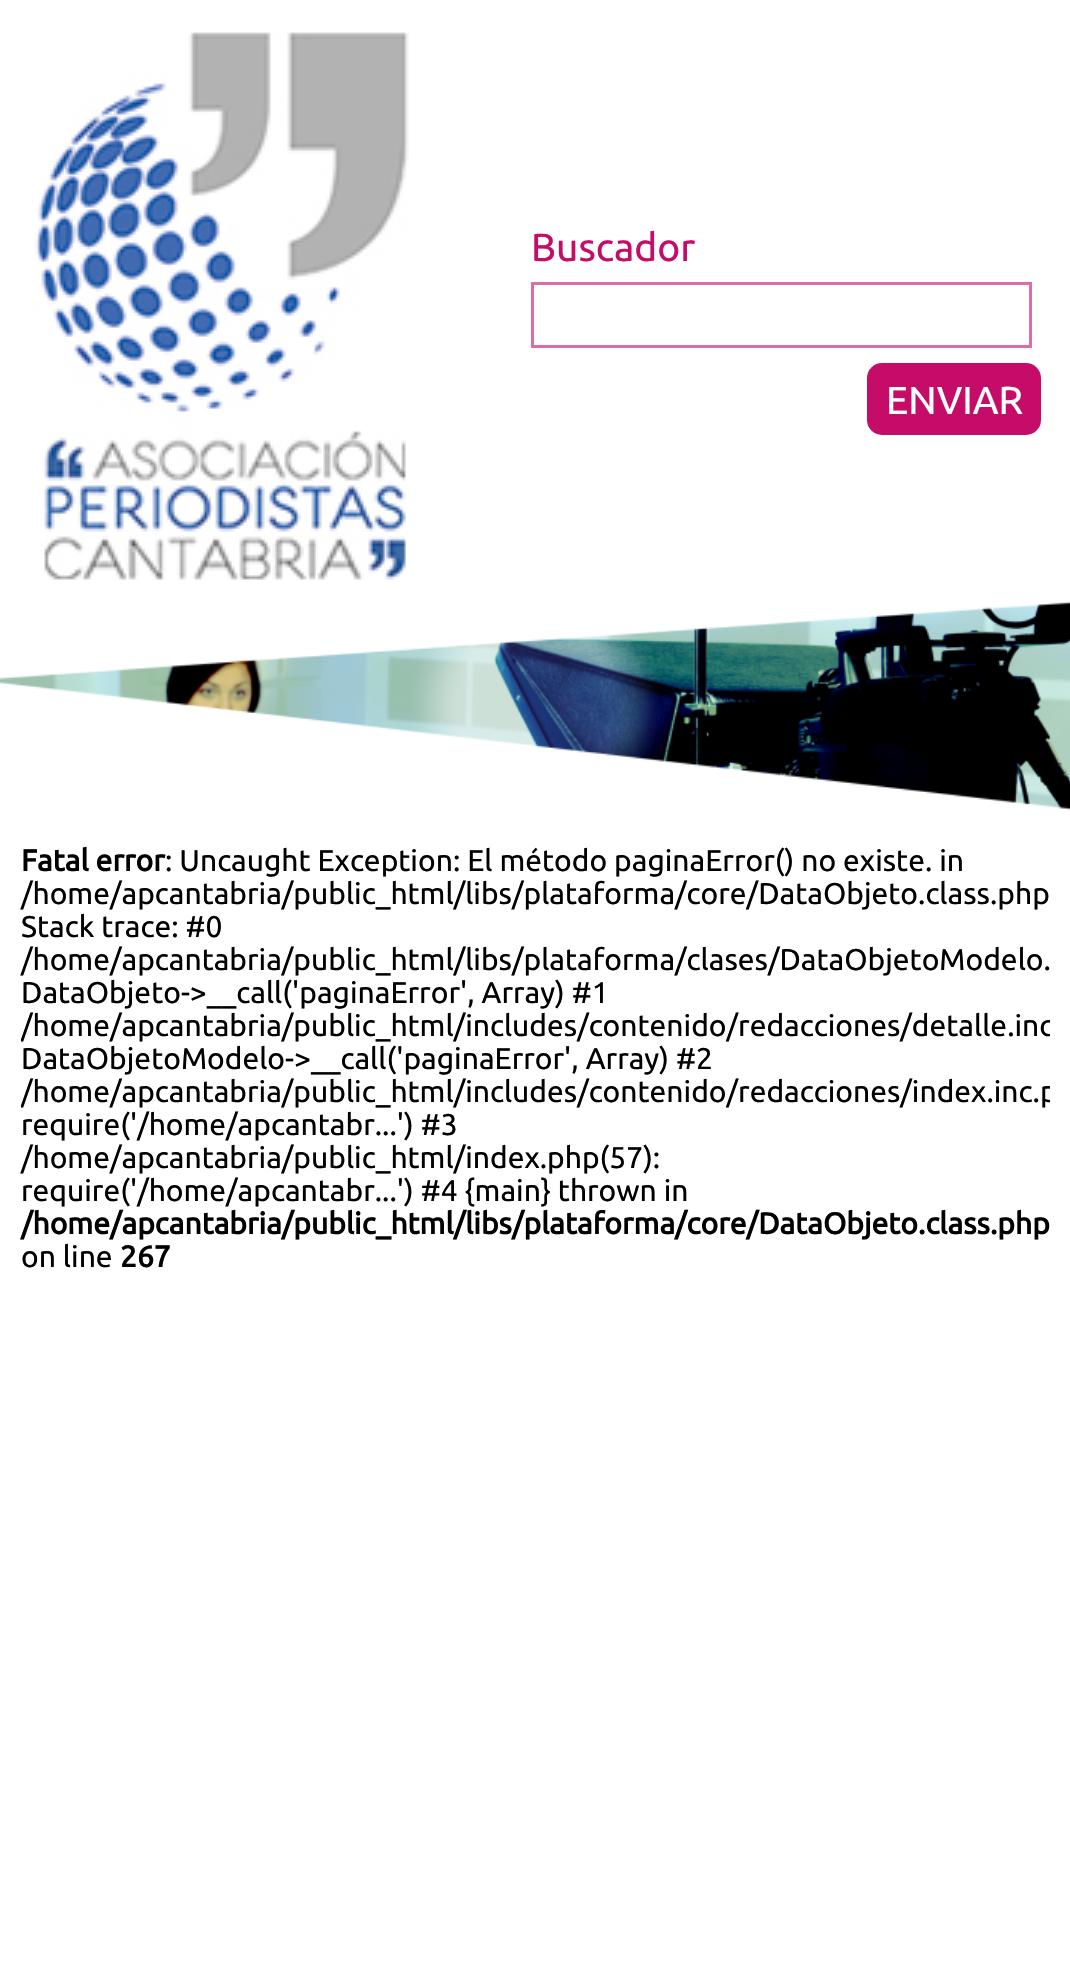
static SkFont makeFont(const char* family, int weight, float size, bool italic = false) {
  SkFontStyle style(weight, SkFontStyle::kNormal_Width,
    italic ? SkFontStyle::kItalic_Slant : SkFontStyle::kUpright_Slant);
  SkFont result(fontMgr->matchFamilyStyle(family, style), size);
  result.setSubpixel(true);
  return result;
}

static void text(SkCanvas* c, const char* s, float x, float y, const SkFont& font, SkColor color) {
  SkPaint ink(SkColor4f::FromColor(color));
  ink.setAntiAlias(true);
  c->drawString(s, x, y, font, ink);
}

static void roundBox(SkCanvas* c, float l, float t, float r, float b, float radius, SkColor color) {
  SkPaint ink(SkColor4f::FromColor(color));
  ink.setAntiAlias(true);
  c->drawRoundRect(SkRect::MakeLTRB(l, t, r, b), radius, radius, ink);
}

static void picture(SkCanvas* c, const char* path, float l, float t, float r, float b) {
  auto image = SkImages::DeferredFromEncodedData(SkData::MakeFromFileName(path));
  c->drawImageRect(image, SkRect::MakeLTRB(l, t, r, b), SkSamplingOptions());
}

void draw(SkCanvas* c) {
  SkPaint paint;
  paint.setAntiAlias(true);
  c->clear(0xffffffff);
  picture(c, "img_01.png", 35, 32, 409, 580);
  SkFont face1 = makeFont("Ubuntu", 400, 39);
  text(c, "Buscador", 531, 261, face1, 0xffc50c69);
  paint.setStyle(SkPaint::kStroke_Style);
  paint.setStrokeWidth(3);
  paint.setColor(0xffdc6da5);
  c->drawRect(SkRect::MakeLTRB(532.5f, 283.5f, 1030.5f, 346.5f), paint);
  roundBox(c, 867, 363, 1041, 435, 15, 0xffc50c69);
  text(c, "ENVIAR", 886, 414, face1, 0xffffffff);
  picture(c, "img_02.png", 0, 601, 1070, 810);
  SkFont face2 = makeFont("Ubuntu", 700, 30);
  text(c, "Fatal error", 21, 871, face2, 0xff000000);
  SkFont face3 = makeFont("Ubuntu", 400, 30);
  text(c, ": Uncaught Exception: El método paginaError() no existe. in", 165, 871, face3, 0xff000000);
  text(c, "/home/apcantabria/public_html/libs/plataforma/core/DataObjeto.class.php", 21, 904, face3, 0xff000000);
  text(c, "Stack trace: #0", 21, 937, face3, 0xff000000);
  text(c, "/home/apcantabria/public_html/libs/plataforma/clases/DataObjetoModelo.", 21, 970, face3, 0xff000000);
  text(c, "DataObjeto->__call('paginaError', Array) #1", 21, 1003, face3, 0xff000000);
  c->save();
  c->clipRect(SkRect::MakeLTRB(21, 810, 1050, 1272));
  text(c, "/home/apcantabria/public_html/includes/contenido/redacciones/detalle.inc", 21, 1036, face3, 0xff000000);
  c->restore();
  text(c, "DataObjetoModelo->__call('paginaError', Array) #2", 21, 1069, face3, 0xff000000);
  c->save();
  c->clipRect(SkRect::MakeLTRB(21, 810, 1050, 1272));
  text(c, "/home/apcantabria/public_html/includes/contenido/redacciones/index.inc.p", 21, 1102, face3, 0xff000000);
  c->restore();
  text(c, "require('/home/apcantabr...') #3", 21, 1135, face3, 0xff000000);
  text(c, "/home/apcantabria/public_html/index.php(57):", 21, 1168, face3, 0xff000000);
  text(c, "require('/home/apcantabr...') #4 {main} thrown in", 21, 1201, face3, 0xff000000);
  text(c, "/home/apcantabria/public_html/libs/plataforma/core/DataObjeto.class.php", 21, 1234, face2, 0xff000000);
  text(c, "on line", 21, 1267, face3, 0xff000000);
  text(c, "267", 120, 1267, face2, 0xff000000);
}
